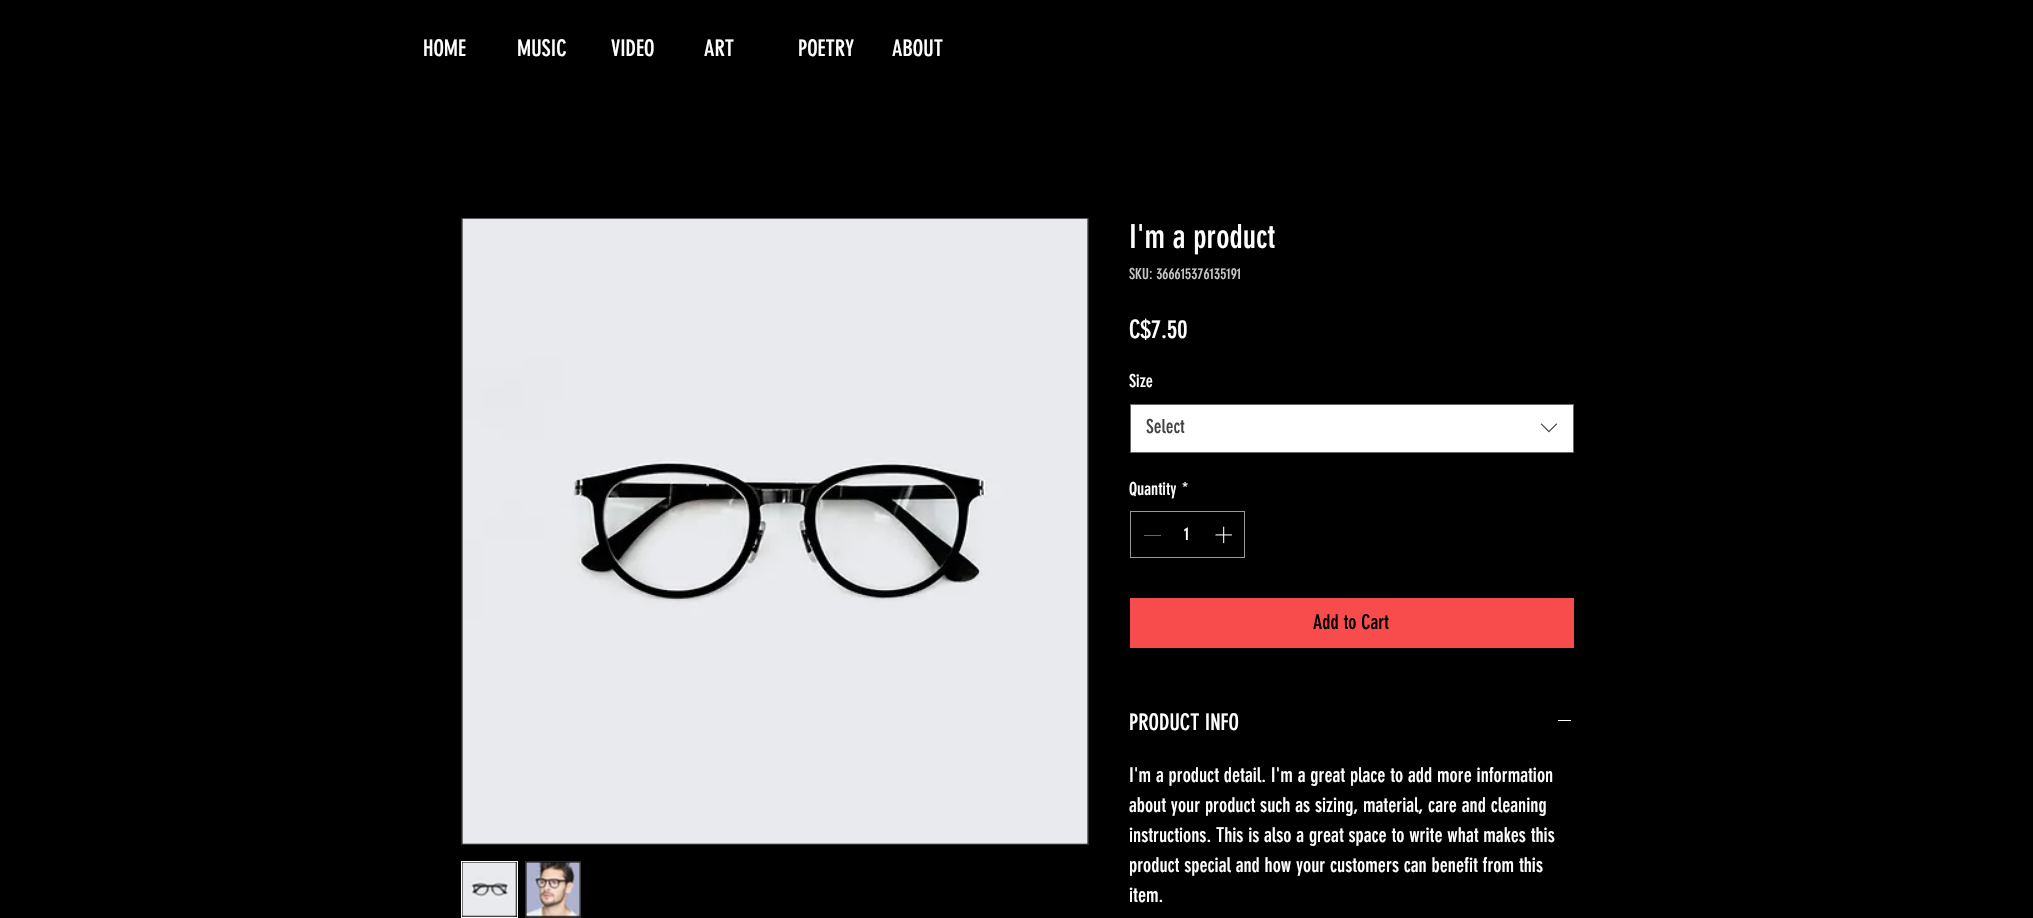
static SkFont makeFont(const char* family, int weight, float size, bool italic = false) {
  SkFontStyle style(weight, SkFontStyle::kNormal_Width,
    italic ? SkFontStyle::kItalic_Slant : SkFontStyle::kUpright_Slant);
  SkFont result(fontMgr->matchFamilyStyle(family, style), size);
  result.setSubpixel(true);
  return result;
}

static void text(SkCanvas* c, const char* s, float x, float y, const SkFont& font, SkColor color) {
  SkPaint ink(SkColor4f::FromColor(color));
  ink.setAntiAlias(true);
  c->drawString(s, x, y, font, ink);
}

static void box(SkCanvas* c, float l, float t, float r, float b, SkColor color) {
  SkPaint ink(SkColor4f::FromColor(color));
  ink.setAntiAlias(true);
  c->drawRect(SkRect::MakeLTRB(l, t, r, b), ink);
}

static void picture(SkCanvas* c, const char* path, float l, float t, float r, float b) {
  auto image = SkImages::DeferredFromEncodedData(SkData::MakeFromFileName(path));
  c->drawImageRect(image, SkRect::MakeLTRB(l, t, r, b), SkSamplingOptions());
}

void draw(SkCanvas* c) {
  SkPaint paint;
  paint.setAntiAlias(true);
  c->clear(0xff000000);
  SkFont face1 = makeFont("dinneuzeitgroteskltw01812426", 400, 22.5f);
  text(c, "HOME", 423, 56, face1, 0xffffffff);
  text(c, "MUSIC", 517, 56, face1, 0xffffffff);
  text(c, "VIDEO", 611, 56, face1, 0xffffffff);
  text(c, "ART", 704, 56, face1, 0xffffffff);
  text(c, "POETRY", 798, 56, face1, 0xffffffff);
  text(c, "ABOUT", 892, 56, face1, 0xffffffff);
  paint.setStyle(SkPaint::kStroke_Style);
  paint.setStrokeWidth(1);
  paint.setColor(0xff2b2b2b);
  c->drawRect(SkRect::MakeLTRB(461.5f, 218.5f, 1088.5f, 844.5f), paint);
  picture(c, "img_01.png", 462, 218, 1088, 844);
  paint.setColor(0xffffffff);
  c->drawRect(SkRect::MakeLTRB(461.5f, 861.5f, 517.5f, 917.5f), paint);
  picture(c, "img_02.png", 462, 862, 517, 917);
  paint.setColor(0xff2b2b2b);
  c->drawRect(SkRect::MakeLTRB(525.5f, 861.5f, 580.5f, 917.5f), paint);
  picture(c, "img_03.png", 525, 862, 581, 917);
  SkFont face2 = makeFont("dinneuzeitgroteskltw01812426", 400, 32.5f);
  text(c, "I'm a product", 1129, 248, face2, 0xffffffff);
  SkFont face3 = makeFont("dinneuzeitgroteskltw01812426", 400, 15);
  text(c, "SKU: 366615376135191", 1129, 279, face3, 0xffc7c7c7);
  SkFont face4 = makeFont("dinneuzeitgroteskltw01812426", 400, 25);
  text(c, "C$7.50", 1129, 338, face4, 0xffffffff);
  SkFont face5 = makeFont("dinneuzeitgroteskltw01812426", 400, 17.5f);
  text(c, "Size", 1129, 387, face5, 0xffffffff);
  paint.setStyle(SkPaint::kFill_Style);
  paint.setColor(0xffffffff);
  c->drawRect(SkRect::MakeLTRB(1130.5f, 404.5f, 1573.5f, 452.5f), paint);
  paint.setStyle(SkPaint::kStroke_Style);
  paint.setColor(0xff666666);
  c->drawRect(SkRect::MakeLTRB(1130.5f, 404.5f, 1573.5f, 452.5f), paint);
  SkFont face6 = makeFont("dinneuzeitgroteskltw01812426", 400, 19);
  text(c, "Select", 1146, 433, face6, 0xff444444);
  picture(c, "img_04.png", 1540, 423, 1558, 433);
  text(c, "Quantity", 1129, 495, face5, 0xffffffff);
  text(c, "*", 1182, 495, face5, 0xffffffff);
  paint.setColor(0xff999999);
  c->drawRect(SkRect::MakeLTRB(1130.5f, 511.5f, 1244.5f, 557.5f), paint);
  box(c, 1144, 535, 1161, 536, 0xff646464);
  text(c, "1", 1184, 540, face5, 0xffffffff);
  picture(c, "img_05.png", 1215, 526, 1232, 544);
  box(c, 1130, 598, 1574, 648, 0xfff74b4c);
  SkFont face7 = makeFont("dinneuzeitgroteskltw01812426", 400, 20);
  text(c, "Add to Cart", 1313, 629, face7, 0xff000000);
  text(c, "PRODUCT INFO", 1129, 730, face1, 0xffffffff);
  box(c, 1558, 720, 1571, 721, 0xffffffff);
  text(c, "I'm a product detail. I'm a great place to add more information", 1129, 782, face7, 0xffffffff);
  text(c, "about your product such as sizing, material, care and cleaning", 1129, 812, face7, 0xffffffff);
  text(c, "instructions. This is also a great space to write what makes this", 1129, 842, face7, 0xffffffff);
  text(c, "product special and how your customers can benefit from this", 1129, 872, face7, 0xffffffff);
  text(c, "item.", 1129, 902, face7, 0xffffffff);
}
